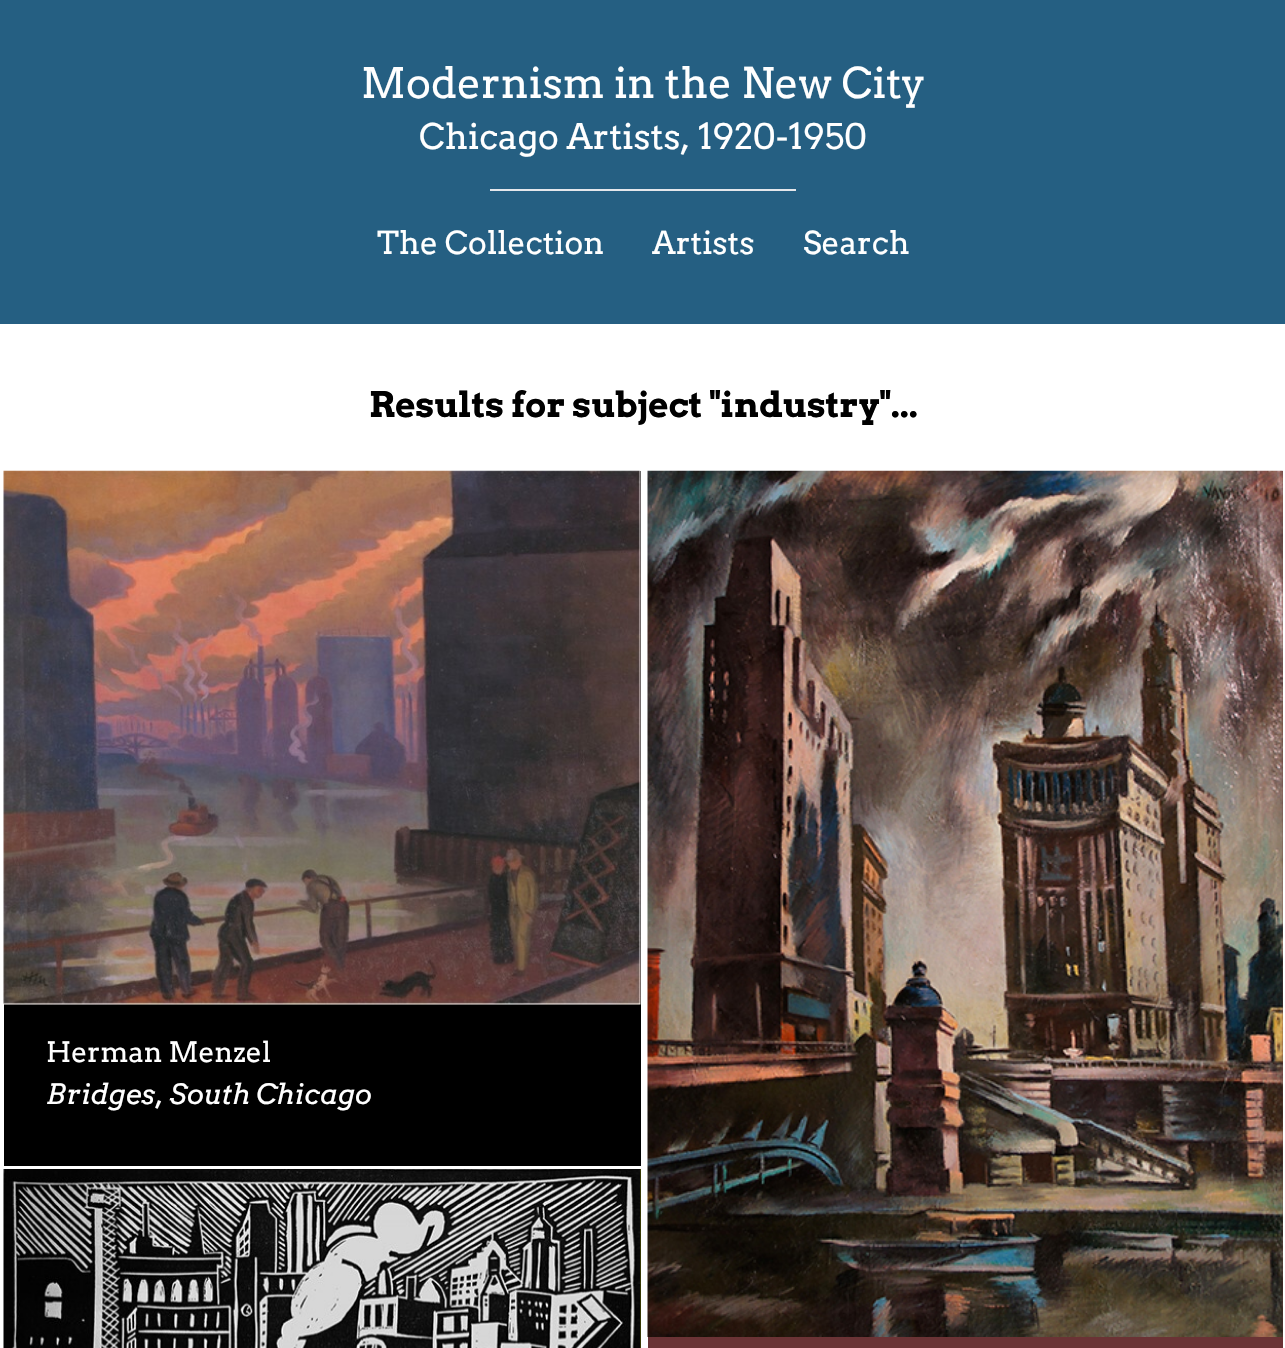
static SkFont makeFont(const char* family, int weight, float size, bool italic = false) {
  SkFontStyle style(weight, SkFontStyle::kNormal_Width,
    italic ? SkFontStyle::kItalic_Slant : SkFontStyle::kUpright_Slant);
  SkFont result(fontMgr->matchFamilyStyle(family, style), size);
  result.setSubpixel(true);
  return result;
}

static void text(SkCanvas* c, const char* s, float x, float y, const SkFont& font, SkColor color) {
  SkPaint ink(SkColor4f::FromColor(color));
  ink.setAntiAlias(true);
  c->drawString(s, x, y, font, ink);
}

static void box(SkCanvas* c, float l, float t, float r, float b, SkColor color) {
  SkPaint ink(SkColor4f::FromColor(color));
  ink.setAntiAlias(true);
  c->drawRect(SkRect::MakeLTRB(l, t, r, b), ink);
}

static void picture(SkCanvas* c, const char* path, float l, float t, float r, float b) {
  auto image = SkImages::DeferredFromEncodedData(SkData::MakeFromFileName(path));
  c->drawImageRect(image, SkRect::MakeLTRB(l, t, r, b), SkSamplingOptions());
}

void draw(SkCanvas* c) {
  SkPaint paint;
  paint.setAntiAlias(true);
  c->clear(0xffffffff);
  box(c, 0, 0, 1285, 324, 0xff255f82);
  SkFont face1 = makeFont("Arvo", 400, 42);
  text(c, "Modernism in the New City", 361, 98, face1, 0xffffffff);
  SkFont face2 = makeFont("Arvo", 400, 35);
  text(c, "Chicago Artists, 1920-1950", 419, 149, face2, 0xffffffff);
  box(c, 490, 189, 796, 191, 0xffe5e7eb);
  SkFont face3 = makeFont("Arvo", 400, 31.5f);
  text(c, "The Collection", 377, 254, face3, 0xffffffff);
  text(c, "Artists", 652, 254, face3, 0xffffffff);
  text(c, "Search", 803, 254, face3, 0xffffffff);
  SkFont face4 = makeFont("Arvo", 700, 35);
  text(c, "Results for subject \"industry\"...", 369, 417, face4, 0xff000000);
  box(c, 4, 471, 641, 1166, 0xff000000);
  picture(c, "img_01.png", 3, 470, 641, 1005);
  SkFont face5 = makeFont("Arvo", 400, 28);
  text(c, "Herman Menzel", 46, 1062, face5, 0xffffffff);
  SkFont face6 = makeFont("Arvo", 400, 28, true);
  text(c, "Bridges, South Chicago", 46, 1104, face6, 0xffffffff);
  box(c, 648, 471, 1283, 1348, 0xff6a3335);
  picture(c, "img_02.png", 647, 470, 1283, 1337);
  box(c, 640, 1169, 641, 1348, 0xff656800);
  picture(c, "img_03.png", 3, 1169, 641, 1348);
}
